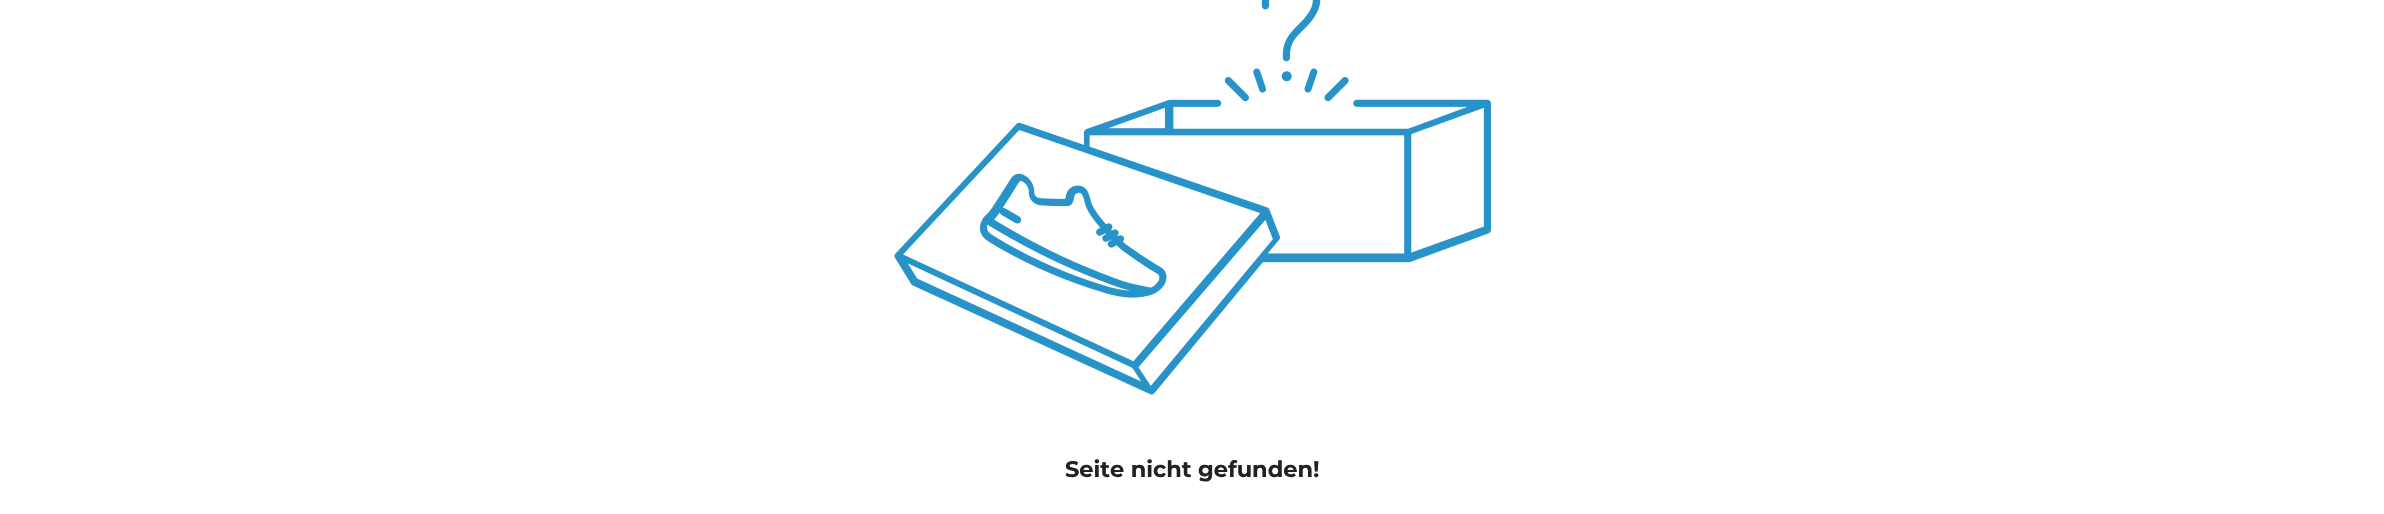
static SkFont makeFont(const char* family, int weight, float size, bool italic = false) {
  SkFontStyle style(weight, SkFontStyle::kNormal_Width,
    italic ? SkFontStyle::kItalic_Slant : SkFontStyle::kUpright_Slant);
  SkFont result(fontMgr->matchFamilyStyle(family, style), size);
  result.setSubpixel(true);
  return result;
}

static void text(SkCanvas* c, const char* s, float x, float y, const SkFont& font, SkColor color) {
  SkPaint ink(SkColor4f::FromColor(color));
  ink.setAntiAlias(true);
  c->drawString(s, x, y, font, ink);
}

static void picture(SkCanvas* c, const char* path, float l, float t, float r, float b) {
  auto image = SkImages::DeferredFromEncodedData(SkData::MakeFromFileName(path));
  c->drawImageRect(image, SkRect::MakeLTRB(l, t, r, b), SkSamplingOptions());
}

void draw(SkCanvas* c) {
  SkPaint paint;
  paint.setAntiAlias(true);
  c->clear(0xffffffff);
  picture(c, "img_01.png", 894, 0, 1491, 395);
  SkFont face1 = makeFont("Montserrat", 700, 22.5f);
  text(c, "Seite nicht gefunden!", 1065, 477, face1, 0xff222222);
}
